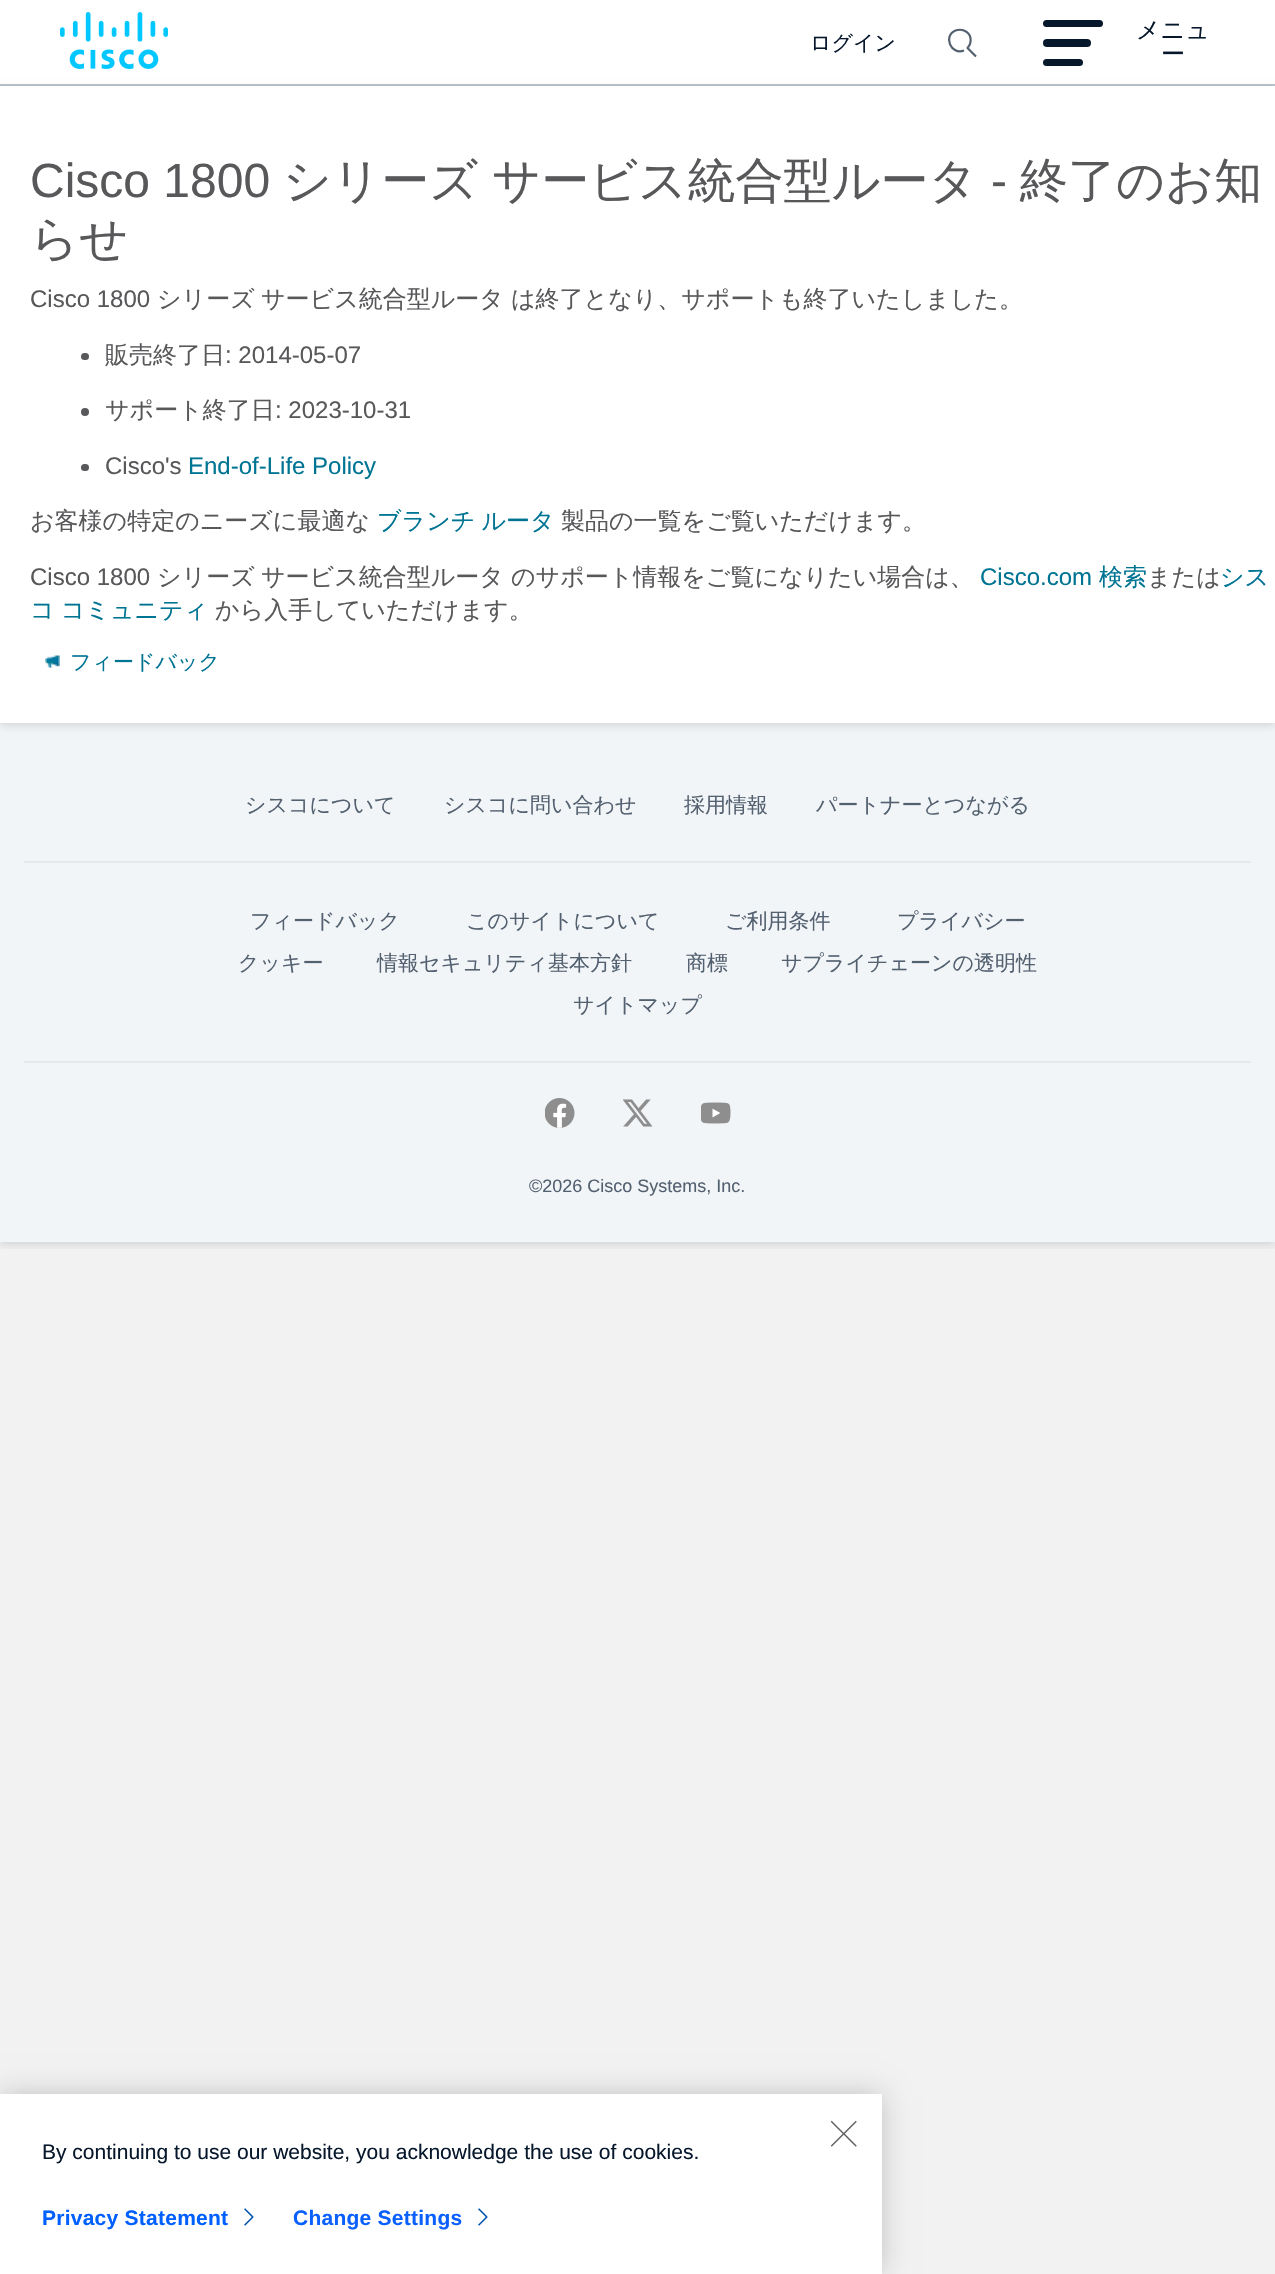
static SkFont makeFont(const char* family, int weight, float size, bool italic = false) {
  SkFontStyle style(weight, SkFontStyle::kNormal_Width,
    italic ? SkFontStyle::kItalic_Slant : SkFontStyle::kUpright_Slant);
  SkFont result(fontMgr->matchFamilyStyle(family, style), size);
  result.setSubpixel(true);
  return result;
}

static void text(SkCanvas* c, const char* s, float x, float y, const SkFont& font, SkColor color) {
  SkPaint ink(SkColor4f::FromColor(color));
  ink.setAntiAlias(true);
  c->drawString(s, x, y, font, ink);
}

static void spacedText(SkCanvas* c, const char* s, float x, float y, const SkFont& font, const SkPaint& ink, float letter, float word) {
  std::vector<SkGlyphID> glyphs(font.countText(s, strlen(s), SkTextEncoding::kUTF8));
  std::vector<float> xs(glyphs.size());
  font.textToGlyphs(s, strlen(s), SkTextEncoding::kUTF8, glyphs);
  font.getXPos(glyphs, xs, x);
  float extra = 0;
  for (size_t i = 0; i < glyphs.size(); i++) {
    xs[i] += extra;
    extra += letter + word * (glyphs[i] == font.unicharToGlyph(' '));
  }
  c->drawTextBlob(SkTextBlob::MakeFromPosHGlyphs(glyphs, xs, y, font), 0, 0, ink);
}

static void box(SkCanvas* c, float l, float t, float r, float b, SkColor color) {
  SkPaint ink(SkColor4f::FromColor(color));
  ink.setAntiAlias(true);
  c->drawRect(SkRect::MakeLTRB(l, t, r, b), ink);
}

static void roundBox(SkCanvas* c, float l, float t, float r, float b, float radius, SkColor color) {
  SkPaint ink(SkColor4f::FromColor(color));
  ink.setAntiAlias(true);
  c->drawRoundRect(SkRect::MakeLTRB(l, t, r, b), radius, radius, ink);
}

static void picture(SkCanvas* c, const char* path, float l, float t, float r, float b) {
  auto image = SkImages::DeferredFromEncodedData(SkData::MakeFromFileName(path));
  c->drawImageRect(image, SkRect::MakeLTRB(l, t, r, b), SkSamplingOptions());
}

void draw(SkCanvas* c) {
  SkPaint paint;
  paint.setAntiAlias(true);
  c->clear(0xfff2f2f2);
  box(c, 0, 0, 1275, 84, 0xffffffff);
  box(c, 0, 84, 1275, 86, 0xffb9c1c9);
  picture(c, "img_01.png", 60, 12, 168, 69);
  SkFont face1 = makeFont("WenQuanYi Zen Hei", 500, 21);
  text(c, "ログイン", 810, 50, face1, 0xff07182d);
  paint.setStyle(SkPaint::kStroke_Style);
  paint.setStrokeWidth(2.2f);
  paint.setStrokeJoin(SkPaint::kRound_Join);
  paint.setColor(0xff536070);
  c->drawPath(SkPathBuilder().moveTo(964, 50.5f).cubicTo(951, 55.5f, 942.5f, 36, 955.5f, 30.5f).cubicTo(958.5f, 29.5f, 961.5f, 29.5f, 964, 30.5f).cubicTo(967.5f, 32, 970, 35, 970.5f, 38).cubicTo(971, 42, 970, 45.5f, 967.5f, 48).lineTo(976, 56.5f).detach(), paint);
  roundBox(c, 1043, 20, 1103, 27, 3.5f, 0xff07182d);
  roundBox(c, 1043, 39, 1091, 47, 4, 0xff07182d);
  roundBox(c, 1043, 59, 1083, 66, 3.5f, 0xff07182d);
  SkFont face2 = makeFont("WenQuanYi Zen Hei", 500, 24);
  text(c, "メニュ", 1136, 38, face2, 0xff07182d);
  text(c, "ー", 1161, 62, face2, 0xff07182d);
  box(c, 0, 723, 1275, 1242, 0xfff2f5f7);
  paint.setStyle(SkPaint::kFill_Style);
  paint.setColor(0x1f000000);
  paint.setMaskFilter(SkMaskFilter::MakeBlur(kNormal_SkBlurStyle, 4));
  c->drawRect(SkRect::MakeLTRB(0, 89, 1275, 726), paint);
  paint.setMaskFilter(nullptr);
  c->save();
  c->clipRect(SkRect::MakeLTRB(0, 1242, 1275, 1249));
  paint.setMaskFilter(SkMaskFilter::MakeBlur(kNormal_SkBlurStyle, 4));
  c->drawRect(SkRect::MakeLTRB(0, 726, 1275, 1245), paint);
  paint.setMaskFilter(nullptr);
  c->restore();
  box(c, 0, 86, 1275, 723, 0xffffffff);
  SkFont face3 = makeFont("Liberation Sans", 400, 48);
  text(c, "Cisco 1800", 30, 197, face3, 0xff58585b);
  SkFont face4 = makeFont("WenQuanYi Zen Hei", 500, 48);
  text(c, "シリーズ", 283, 197, face4, 0xff58585b);
  text(c, "サービス統合型ルータ", 492, 197, face4, 0xff58585b);
  text(c, "-", 991, 197, face3, 0xff58585b);
  text(c, "終了のお知", 1020, 197, face4, 0xff58585b);
  text(c, "らせ", 30, 255, face4, 0xff58585b);
  SkFont face5 = makeFont("Liberation Sans", 400, 24);
  text(c, "Cisco 1800", 30, 307, face5, 0xff58585b);
  text(c, "シリーズ", 157, 307, face2, 0xff58585b);
  text(c, "サービス統合型ルータ", 261, 307, face2, 0xff58585b);
  text(c, "は終了となり、サポートも終了いたしました。", 511, 307, face2, 0xff58585b);
  roundBox(c, 81, 353, 89, 360, 3.5f, 0xff58585b);
  text(c, "販売終了日", 105, 363, face2, 0xff58585b);
  text(c, ": 2014-05-07", 225, 363, face5, 0xff58585b);
  paint.setColor(0xff58585b);
  c->drawCircle(85, 412, 4, paint);
  text(c, "サポート終了日", 105, 418, face2, 0xff58585b);
  text(c, ": 2023-10-31", 275, 418, face5, 0xff58585b);
  roundBox(c, 81, 464, 89, 471, 3.5f, 0xff58585b);
  text(c, "Cisco's", 105, 474, face5, 0xff58585b);
  text(c, "End-of-Life Policy", 188, 474, face5, 0xff007493);
  text(c, "お客様の特定のニーズに最適な", 30, 529, face2, 0xff58585b);
  paint.setColor(0xff007493);
  spacedText(c, "ブランチ ルータ", 377, 529, face2, paint, 0, -1);
  text(c, "製品の一覧をご覧いただけます。", 561, 529, face2, 0xff58585b);
  text(c, "Cisco 1800", 30, 585, face5, 0xff58585b);
  text(c, "シリーズ", 157, 585, face2, 0xff58585b);
  text(c, "サービス統合型ルータ", 261, 585, face2, 0xff58585b);
  text(c, "のサポート情報をご覧になりたい場合は、", 511, 585, face2, 0xff58585b);
  text(c, "Cisco.com", 980, 585, face5, 0xff007493);
  text(c, "検索", 1099, 585, face2, 0xff007493);
  text(c, "または", 1147, 585, face2, 0xff58585b);
  text(c, "シス", 1220, 585, face2, 0xff007493);
  spacedText(c, "コ コミュニティ", 30, 618, face2, paint, 0, -1);
  text(c, "から入手していただけます。", 215, 618, face2, 0xff58585b);
  picture(c, "img_02.png", 45, 655, 60, 668);
  text(c, "フィードバック", 70, 669, face1, 0xff007493);
  text(c, "シスコについて", 245, 812, face1, 0xff536070);
  text(c, "シスコに問い合わせ", 444, 812, face1, 0xff536070);
  text(c, "採用情報", 684, 812, face1, 0xff536070);
  text(c, "パートナーとつながる", 816, 812, face1, 0xff536070);
  box(c, 24, 861, 1251, 863, 0xffe6e7e8);
  text(c, "フィードバック", 250, 928, face1, 0xff536070);
  text(c, "このサイトについて", 466, 928, face1, 0xff536070);
  text(c, "ご利用条件", 725, 928, face1, 0xff536070);
  text(c, "プライバシー", 897, 928, face1, 0xff536070);
  text(c, "クッキー", 238, 970, face1, 0xff536070);
  text(c, "情報セキュリティ基本方針", 377, 970, face1, 0xff536070);
  text(c, "商標", 686, 970, face1, 0xff536070);
  text(c, "サプライチェーンの透明性", 781, 970, face1, 0xff536070);
  text(c, "サイトマップ", 573, 1012, face1, 0xff536070);
  box(c, 24, 1061, 1251, 1063, 0xffe6e7e8);
  picture(c, "img_03.png", 545, 1098, 575, 1128);
  picture(c, "img_04.png", 623, 1099, 653, 1127);
  picture(c, "img_05.png", 701, 1102, 731, 1124);
  SkFont face6 = makeFont("Liberation Sans", 400, 18);
  text(c, "©2026 Cisco Systems, Inc.", 529, 1192, face6, 0xff536070);
  paint.setColor(0x33000000);
  paint.setMaskFilter(SkMaskFilter::MakeBlur(kNormal_SkBlurStyle, 13.5f));
  c->drawRect(SkRect::MakeLTRB(0, 2094, 882, 2274), paint);
  paint.setMaskFilter(nullptr);
  box(c, 0, 2094, 882, 2274, 0xffffffff);
  picture(c, "img_06.png", 830, 2120, 857, 2147);
  SkFont face7 = makeFont("Liberation Sans", 400, 21);
  text(c, "By continuing to use our website, you acknowledge the use of cookies.", 42, 2159, face7, 0xff07182d);
  SkFont face8 = makeFont("Liberation Sans", 700, 21);
  paint.setColor(0xff0060ff);
  spacedText(c, "Privacy Statement", 42, 2225, face8, paint, 0.25f, 0);
  picture(c, "img_07.png", 244, 2208, 254, 2226);
  paint.setColor(0xff0a60ff);
  spacedText(c, "Change Settings", 293, 2225, face8, paint, 0.25f, 0);
  picture(c, "img_07.png", 478, 2208, 488, 2226);
}
